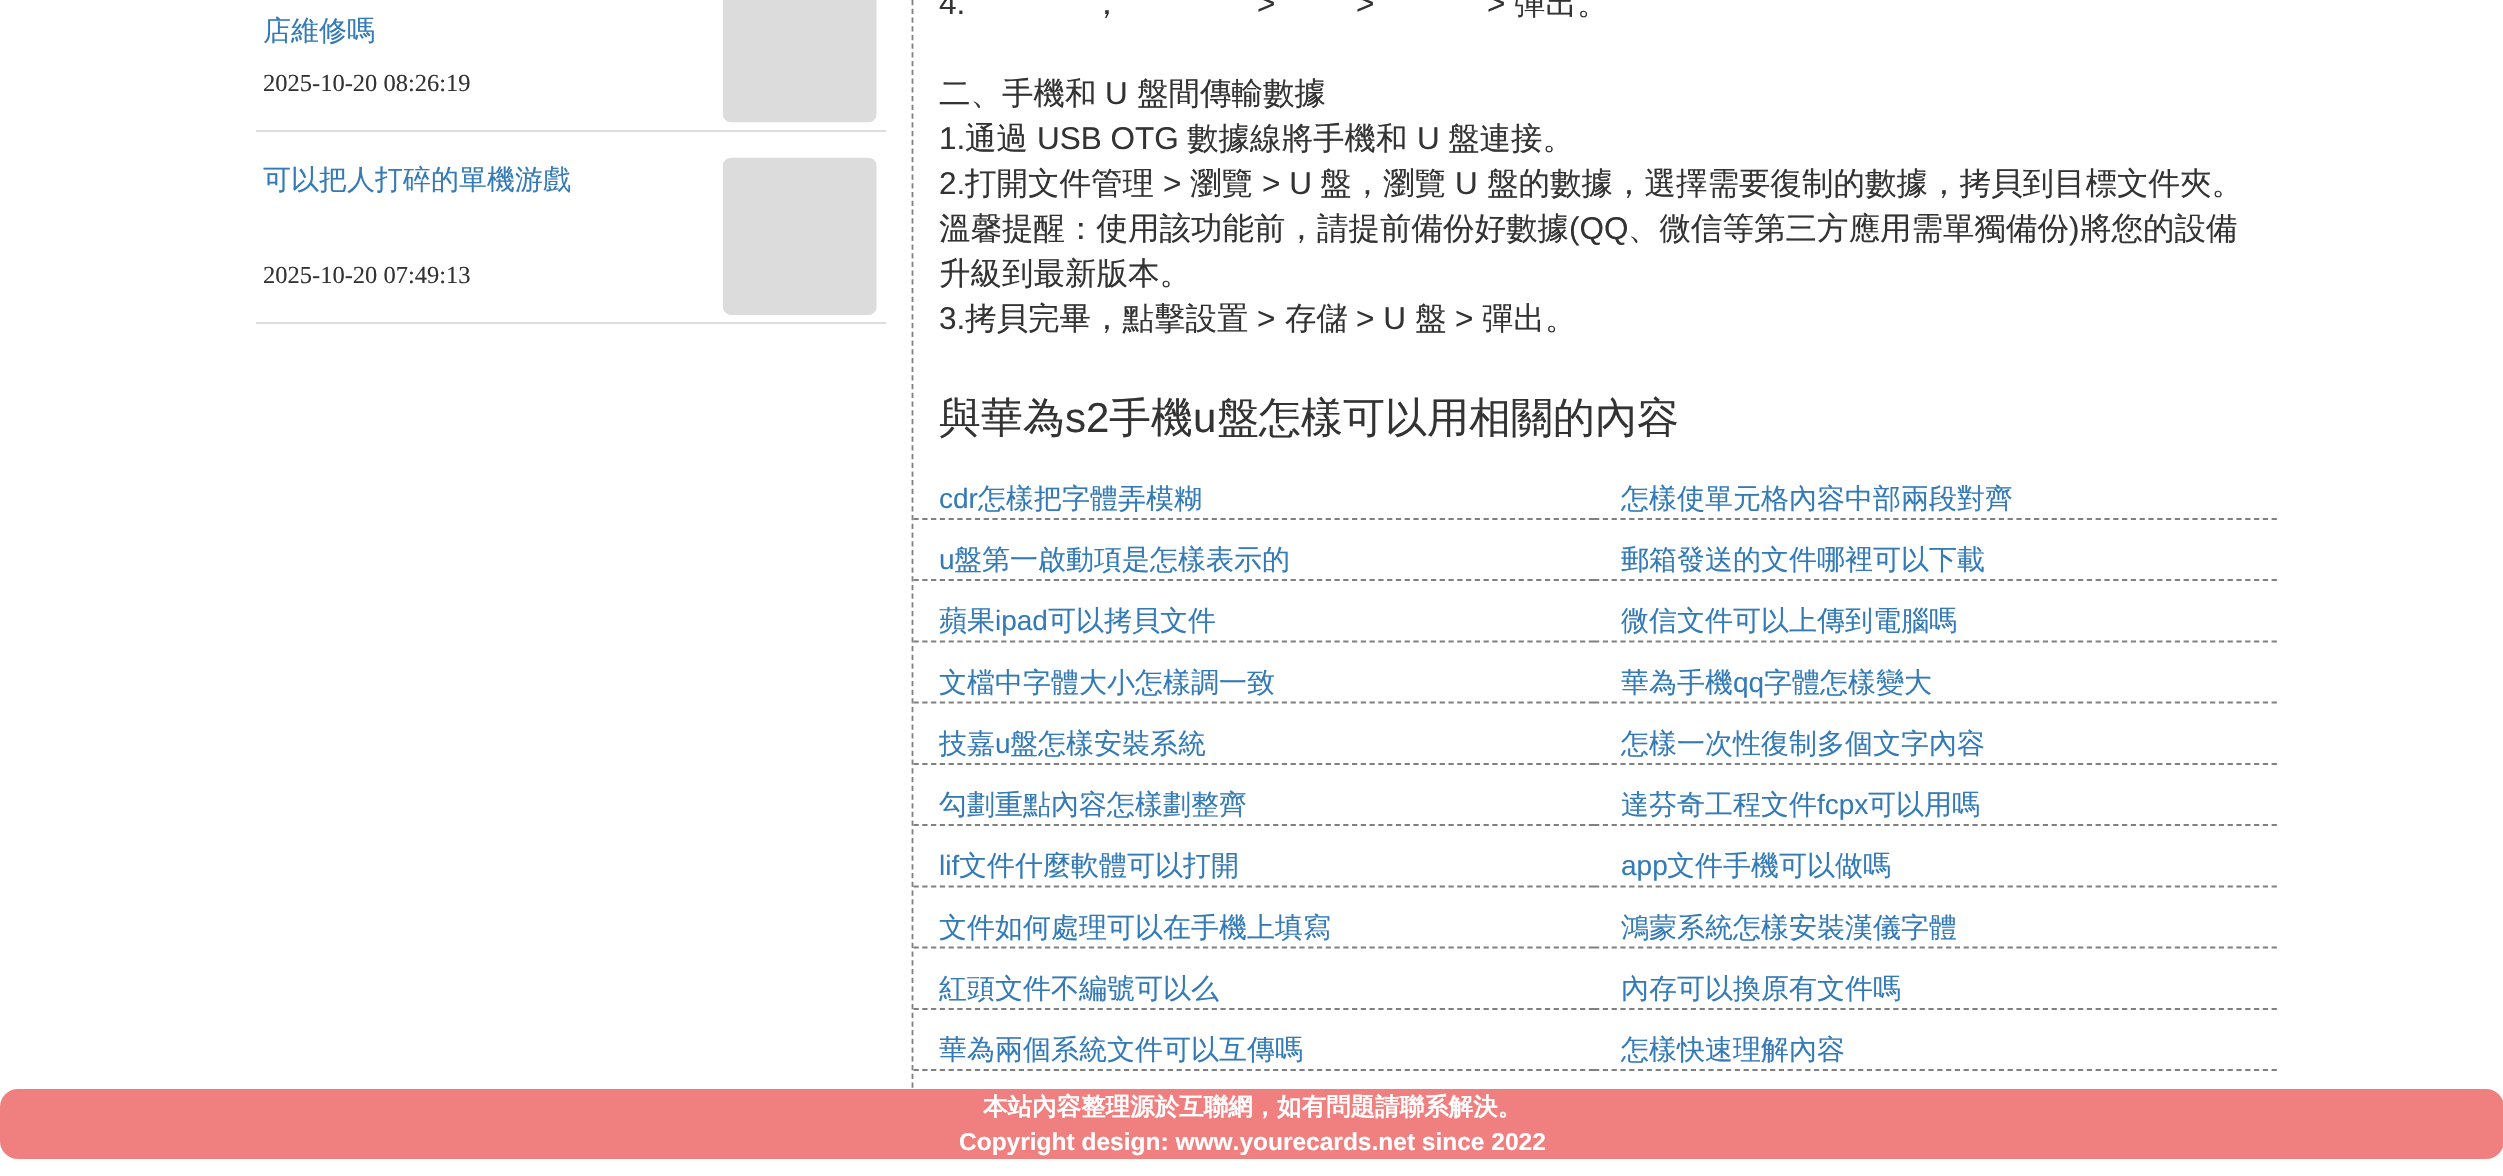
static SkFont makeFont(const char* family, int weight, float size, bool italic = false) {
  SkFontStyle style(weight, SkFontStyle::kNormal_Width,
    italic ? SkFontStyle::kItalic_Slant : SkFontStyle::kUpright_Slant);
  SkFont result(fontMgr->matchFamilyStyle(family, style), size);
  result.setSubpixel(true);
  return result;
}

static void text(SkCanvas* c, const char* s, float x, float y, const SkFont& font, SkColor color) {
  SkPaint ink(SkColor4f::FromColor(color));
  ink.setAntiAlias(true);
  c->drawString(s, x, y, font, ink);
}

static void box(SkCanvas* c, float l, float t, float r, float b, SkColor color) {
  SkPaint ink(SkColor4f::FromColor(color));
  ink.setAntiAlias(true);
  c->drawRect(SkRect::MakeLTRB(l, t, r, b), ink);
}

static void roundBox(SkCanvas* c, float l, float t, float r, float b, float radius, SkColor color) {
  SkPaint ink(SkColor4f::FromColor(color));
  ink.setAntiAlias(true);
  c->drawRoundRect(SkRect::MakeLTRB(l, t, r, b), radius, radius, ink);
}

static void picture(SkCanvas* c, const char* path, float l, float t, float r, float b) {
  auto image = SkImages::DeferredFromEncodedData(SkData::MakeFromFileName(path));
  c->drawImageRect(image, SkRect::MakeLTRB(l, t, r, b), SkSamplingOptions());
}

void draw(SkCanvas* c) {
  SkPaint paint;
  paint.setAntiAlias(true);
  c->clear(0xffffffff);
  box(c, 256, 130, 886, 132, 0xffdcdcdc);
  SkFont face1 = makeFont("WenQuanYi Zen Hei", 500, 28);
  text(c, "店維修嗎", 263, 40, face1, 0xff337ab7);
  SkFont face2 = makeFont("Liberation Serif", 400, 24.5f);
  text(c, "2025-10-20 08:26:19", 263, 91, face2, 0xff333333);
  picture(c, "img_01.png", 723, 0, 877, 123);
  box(c, 256, 322, 886, 324, 0xffdcdcdc);
  text(c, "可以把人打碎的單機游戲", 263, 189, face1, 0xff337ab7);
  text(c, "2025-10-20 07:49:13", 263, 283, face2, 0xff333333);
  picture(c, "img_02.png", 723, 157, 877, 315);
  paint.setStyle(SkPaint::kStroke_Style);
  paint.setStrokeWidth(1.8f);
  paint.setColor(0xff808080);
  paint.setPathEffect(SkDashPathEffect::Make({{5.25f, 3.48f}}, 0));
  c->drawPath(SkPathBuilder().moveTo(912.5f, -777).lineTo(912.5f, 1088.5f).detach(), paint);
  paint.setPathEffect(nullptr);
  SkFont face3 = makeFont("Liberation Sans", 400, 31.5f);
  text(c, "4.", 939, 14, face3, 0xff333333);
  SkFont face4 = makeFont("WenQuanYi Zen Hei", 500, 31.5f);
  text(c, "，", 1091, 14, face4, 0xff333333);
  text(c, ">", 1257, 14, face3, 0xff333333);
  text(c, ">", 1356, 14, face3, 0xff333333);
  text(c, ">", 1487, 14, face3, 0xff333333);
  text(c, "彈出。", 1514, 14, face4, 0xff333333);
  text(c, "二、手機和", 939, 104, face4, 0xff333333);
  text(c, "U", 1105, 104, face3, 0xff333333);
  text(c, "盤間傳輸數據", 1137, 104, face4, 0xff333333);
  text(c, "1.", 939, 149, face3, 0xff333333);
  text(c, "通過", 965, 149, face4, 0xff333333);
  text(c, "USB OTG", 1037, 149, face3, 0xff333333);
  text(c, "數據線將手機和", 1187, 149, face4, 0xff333333);
  text(c, "U", 1417, 149, face3, 0xff333333);
  text(c, "盤連接。", 1448, 149, face4, 0xff333333);
  text(c, "2.", 939, 194, face3, 0xff333333);
  text(c, "打開文件管理", 965, 194, face4, 0xff333333);
  text(c, ">", 1163, 194, face3, 0xff333333);
  text(c, "瀏覽", 1190, 194, face4, 0xff333333);
  text(c, "> U", 1262, 194, face3, 0xff333333);
  text(c, "盤，瀏覽", 1320, 194, face4, 0xff333333);
  text(c, "U", 1455, 194, face3, 0xff333333);
  text(c, "盤的數據，選擇需要復制的數據，拷貝到目標文件夾。", 1487, 194, face4, 0xff333333);
  text(c, "溫馨提醒：使用該功能前，請提前備份好數據", 939, 239, face4, 0xff333333);
  text(c, "(QQ", 1569, 239, face3, 0xff333333);
  text(c, "、微信等第三方應用需單獨備份", 1628, 239, face4, 0xff333333);
  text(c, ")", 2069, 239, face3, 0xff333333);
  text(c, "將您的設備", 2080, 239, face4, 0xff333333);
  text(c, "升級到最新版本。", 939, 284, face4, 0xff333333);
  text(c, "3.", 939, 329, face3, 0xff333333);
  text(c, "拷貝完畢，點擊設置", 965, 329, face4, 0xff333333);
  text(c, ">", 1257, 329, face3, 0xff333333);
  text(c, "存儲", 1285, 329, face4, 0xff333333);
  text(c, "> U", 1356, 329, face3, 0xff333333);
  text(c, "盤", 1415, 329, face4, 0xff333333);
  text(c, ">", 1455, 329, face3, 0xff333333);
  text(c, "彈出。", 1482, 329, face4, 0xff333333);
  SkFont face5 = makeFont("WenQuanYi Zen Hei", 500, 42);
  text(c, "與華為", 939, 432, face5, 0xff333333);
  SkFont face6 = makeFont("Liberation Sans", 400, 42);
  text(c, "s2", 1065, 432, face6, 0xff333333);
  text(c, "手機", 1109, 432, face5, 0xff333333);
  text(c, "u", 1193, 432, face6, 0xff333333);
  text(c, "盤怎樣可以用相關的內容", 1217, 432, face5, 0xff333333);
  paint.setPathEffect(SkDashPathEffect::Make({{5.25f, 3.52f}}, 0));
  c->drawPath(SkPathBuilder().moveTo(913.5f, 519).lineTo(1594, 519).detach(), paint);
  paint.setPathEffect(nullptr);
  SkFont face7 = makeFont("Liberation Sans", 400, 28);
  text(c, "cdr", 939, 508, face7, 0xff337ab7);
  text(c, "怎樣把字體弄模糊", 978, 508, face1, 0xff337ab7);
  paint.setPathEffect(SkDashPathEffect::Make({{5.25f, 3.55f}}, 0));
  c->drawPath(SkPathBuilder().moveTo(1594, 519).lineTo(2277, 519).detach(), paint);
  paint.setPathEffect(nullptr);
  text(c, "怎樣使單元格內容中部兩段對齊", 1621, 508, face1, 0xff337ab7);
  paint.setPathEffect(SkDashPathEffect::Make({{5.25f, 3.52f}}, 0));
  c->drawPath(SkPathBuilder().moveTo(913.5f, 580).lineTo(1594, 580).detach(), paint);
  paint.setPathEffect(nullptr);
  text(c, "u", 939, 569, face7, 0xff337ab7);
  text(c, "盤第一啟動項是怎樣表示的", 954, 569, face1, 0xff337ab7);
  paint.setPathEffect(SkDashPathEffect::Make({{5.25f, 3.55f}}, 0));
  c->drawPath(SkPathBuilder().moveTo(1594, 580).lineTo(2277, 580).detach(), paint);
  paint.setPathEffect(nullptr);
  text(c, "郵箱發送的文件哪裡可以下載", 1621, 569, face1, 0xff337ab7);
  paint.setPathEffect(SkDashPathEffect::Make({{5.25f, 3.52f}}, 0));
  c->drawPath(SkPathBuilder().moveTo(913.5f, 641.5f).lineTo(1594, 641.5f).detach(), paint);
  paint.setPathEffect(nullptr);
  text(c, "蘋果", 939, 630, face1, 0xff337ab7);
  text(c, "ipad", 995, 630, face7, 0xff337ab7);
  text(c, "可以拷貝文件", 1048, 630, face1, 0xff337ab7);
  paint.setPathEffect(SkDashPathEffect::Make({{5.25f, 3.55f}}, 0));
  c->drawPath(SkPathBuilder().moveTo(1594, 641.5f).lineTo(2277, 641.5f).detach(), paint);
  paint.setPathEffect(nullptr);
  text(c, "微信文件可以上傳到電腦嗎", 1621, 630, face1, 0xff337ab7);
  paint.setPathEffect(SkDashPathEffect::Make({{5.25f, 3.52f}}, 0));
  c->drawPath(SkPathBuilder().moveTo(913.5f, 702.5f).lineTo(1594, 702.5f).detach(), paint);
  paint.setPathEffect(nullptr);
  text(c, "文檔中字體大小怎樣調一致", 939, 692, face1, 0xff337ab7);
  paint.setPathEffect(SkDashPathEffect::Make({{5.25f, 3.55f}}, 0));
  c->drawPath(SkPathBuilder().moveTo(1594, 702.5f).lineTo(2277, 702.5f).detach(), paint);
  paint.setPathEffect(nullptr);
  text(c, "華為手機", 1621, 692, face1, 0xff337ab7);
  text(c, "qq", 1733, 692, face7, 0xff337ab7);
  text(c, "字體怎樣變大", 1764, 692, face1, 0xff337ab7);
  paint.setPathEffect(SkDashPathEffect::Make({{5.25f, 3.52f}}, 0));
  c->drawPath(SkPathBuilder().moveTo(913.5f, 764).lineTo(1594, 764).detach(), paint);
  paint.setPathEffect(nullptr);
  text(c, "技嘉", 939, 753, face1, 0xff337ab7);
  text(c, "u", 995, 753, face7, 0xff337ab7);
  text(c, "盤怎樣安裝系統", 1010, 753, face1, 0xff337ab7);
  paint.setPathEffect(SkDashPathEffect::Make({{5.25f, 3.55f}}, 0));
  c->drawPath(SkPathBuilder().moveTo(1594, 764).lineTo(2277, 764).detach(), paint);
  paint.setPathEffect(nullptr);
  text(c, "怎樣一次性復制多個文字內容", 1621, 753, face1, 0xff337ab7);
  paint.setPathEffect(SkDashPathEffect::Make({{5.25f, 3.52f}}, 0));
  c->drawPath(SkPathBuilder().moveTo(913.5f, 825).lineTo(1594, 825).detach(), paint);
  paint.setPathEffect(nullptr);
  text(c, "勾劃重點內容怎樣劃整齊", 939, 814, face1, 0xff337ab7);
  paint.setPathEffect(SkDashPathEffect::Make({{5.25f, 3.55f}}, 0));
  c->drawPath(SkPathBuilder().moveTo(1594, 825).lineTo(2277, 825).detach(), paint);
  paint.setPathEffect(nullptr);
  text(c, "達芬奇工程文件", 1621, 814, face1, 0xff337ab7);
  text(c, "fcpx", 1817, 814, face7, 0xff337ab7);
  text(c, "可以用嗎", 1868, 814, face1, 0xff337ab7);
  paint.setPathEffect(SkDashPathEffect::Make({{5.25f, 3.52f}}, 0));
  c->drawPath(SkPathBuilder().moveTo(913.5f, 886.5f).lineTo(1594, 886.5f).detach(), paint);
  paint.setPathEffect(nullptr);
  text(c, "lif", 939, 875, face7, 0xff337ab7);
  text(c, "文件什麼軟體可以打開", 959, 875, face1, 0xff337ab7);
  paint.setPathEffect(SkDashPathEffect::Make({{5.25f, 3.55f}}, 0));
  c->drawPath(SkPathBuilder().moveTo(1594, 886.5f).lineTo(2277, 886.5f).detach(), paint);
  paint.setPathEffect(nullptr);
  text(c, "app", 1621, 875, face7, 0xff337ab7);
  text(c, "文件手機可以做嗎", 1667, 875, face1, 0xff337ab7);
  paint.setPathEffect(SkDashPathEffect::Make({{5.25f, 3.52f}}, 0));
  c->drawPath(SkPathBuilder().moveTo(913.5f, 947.5f).lineTo(1594, 947.5f).detach(), paint);
  paint.setPathEffect(nullptr);
  text(c, "文件如何處理可以在手機上填寫", 939, 937, face1, 0xff337ab7);
  paint.setPathEffect(SkDashPathEffect::Make({{5.25f, 3.55f}}, 0));
  c->drawPath(SkPathBuilder().moveTo(1594, 947.5f).lineTo(2277, 947.5f).detach(), paint);
  paint.setPathEffect(nullptr);
  text(c, "鴻蒙系統怎樣安裝漢儀字體", 1621, 937, face1, 0xff337ab7);
  paint.setPathEffect(SkDashPathEffect::Make({{5.25f, 3.52f}}, 0));
  c->drawPath(SkPathBuilder().moveTo(913.5f, 1009).lineTo(1594, 1009).detach(), paint);
  paint.setPathEffect(nullptr);
  text(c, "紅頭文件不編號可以么", 939, 998, face1, 0xff337ab7);
  paint.setPathEffect(SkDashPathEffect::Make({{5.25f, 3.55f}}, 0));
  c->drawPath(SkPathBuilder().moveTo(1594, 1009).lineTo(2277, 1009).detach(), paint);
  paint.setPathEffect(nullptr);
  text(c, "內存可以換原有文件嗎", 1621, 998, face1, 0xff337ab7);
  paint.setPathEffect(SkDashPathEffect::Make({{5.25f, 3.52f}}, 0));
  c->drawPath(SkPathBuilder().moveTo(913.5f, 1070).lineTo(1594, 1070).detach(), paint);
  paint.setPathEffect(nullptr);
  text(c, "華為兩個系統文件可以互傳嗎", 939, 1059, face1, 0xff337ab7);
  paint.setPathEffect(SkDashPathEffect::Make({{5.25f, 3.55f}}, 0));
  c->drawPath(SkPathBuilder().moveTo(1594, 1070).lineTo(2277, 1070).detach(), paint);
  paint.setPathEffect(nullptr);
  text(c, "怎樣快速理解內容", 1621, 1059, face1, 0xff337ab7);
  roundBox(c, 0, 1089, 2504, 1159, 18, 0xfff08080);
  SkFont face8 = makeFont("WenQuanYi Zen Hei", 700, 24.5f);
  text(c, "本站內容整理源於互聯網，如有問題請聯系解決。", 983, 1115, face8, 0xffffffff);
  SkFont face9 = makeFont("Liberation Sans", 700, 24.5f);
  text(c, "Copyright design: www.yourecards.net since 2022", 959, 1150, face9, 0xffffffff);
}
